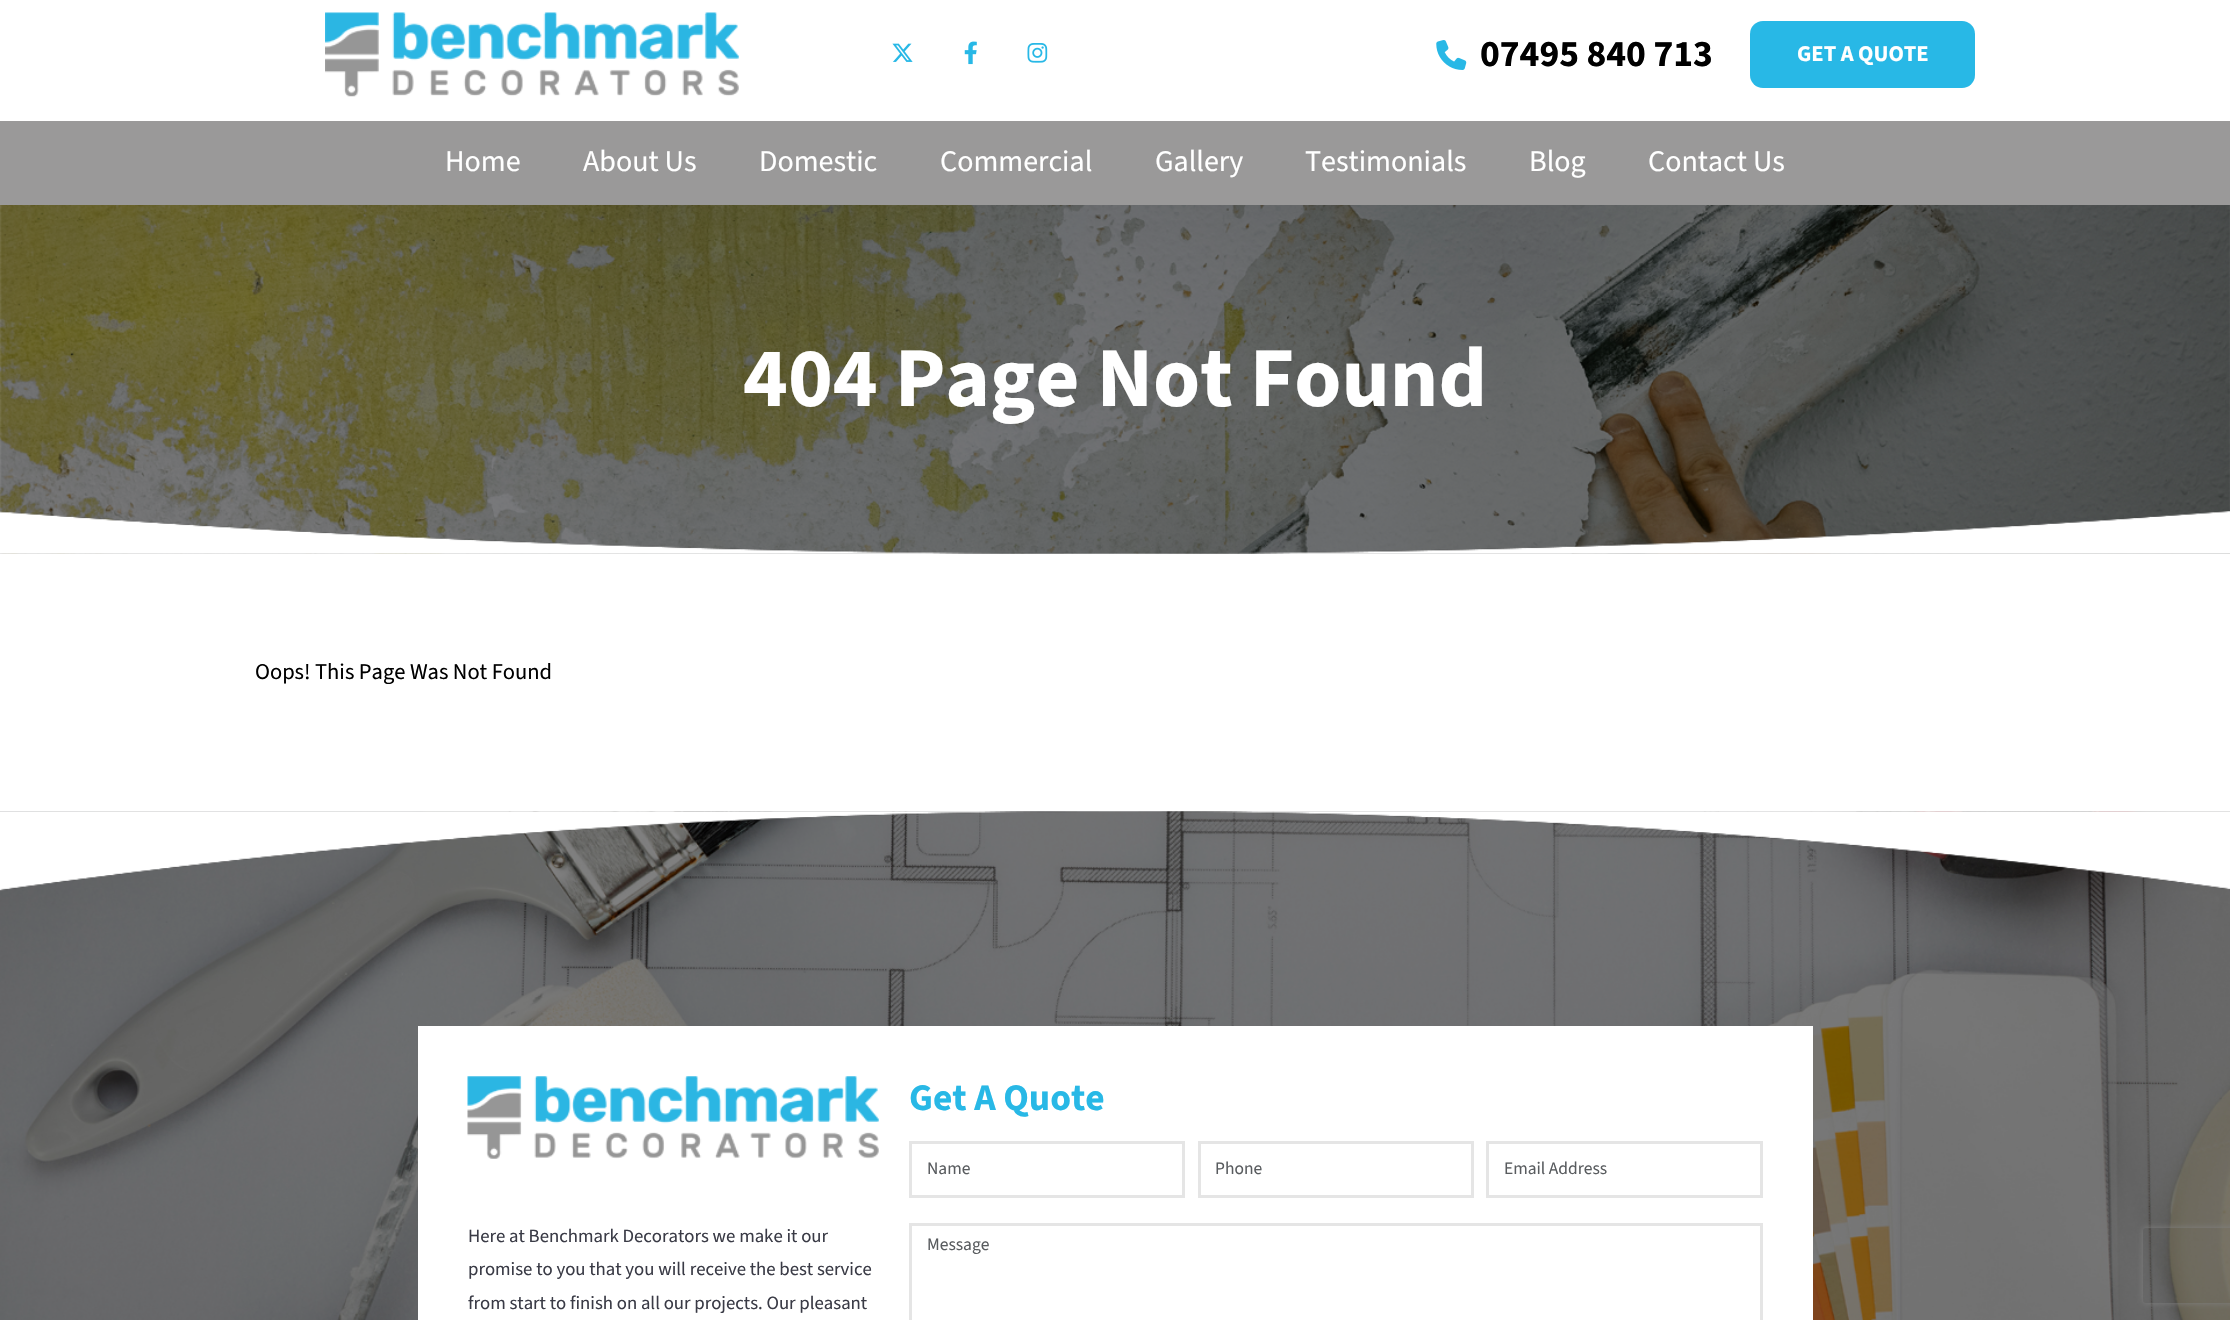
static SkFont makeFont(const char* family, int weight, float size, bool italic = false) {
  SkFontStyle style(weight, SkFontStyle::kNormal_Width,
    italic ? SkFontStyle::kItalic_Slant : SkFontStyle::kUpright_Slant);
  SkFont result(fontMgr->matchFamilyStyle(family, style), size);
  result.setSubpixel(true);
  return result;
}

static void text(SkCanvas* c, const char* s, float x, float y, const SkFont& font, SkColor color) {
  SkPaint ink(SkColor4f::FromColor(color));
  ink.setAntiAlias(true);
  c->drawString(s, x, y, font, ink);
}

static void box(SkCanvas* c, float l, float t, float r, float b, SkColor color) {
  SkPaint ink(SkColor4f::FromColor(color));
  ink.setAntiAlias(true);
  c->drawRect(SkRect::MakeLTRB(l, t, r, b), ink);
}

static void roundBox(SkCanvas* c, float l, float t, float r, float b, float radius, SkColor color) {
  SkPaint ink(SkColor4f::FromColor(color));
  ink.setAntiAlias(true);
  c->drawRoundRect(SkRect::MakeLTRB(l, t, r, b), radius, radius, ink);
}

static void picture(SkCanvas* c, const char* path, float l, float t, float r, float b) {
  auto image = SkImages::DeferredFromEncodedData(SkData::MakeFromFileName(path));
  c->drawImageRect(image, SkRect::MakeLTRB(l, t, r, b), SkSamplingOptions());
}

void draw(SkCanvas* c) {
  SkPaint paint;
  paint.setAntiAlias(true);
  c->clear(0xffffffff);
  picture(c, "img_01.png", 325, 12, 739, 97);
  picture(c, "img_02.png", 892, 43, 913, 62);
  picture(c, "img_03.png", 964, 41, 977, 65);
  picture(c, "img_04.png", 1027, 43, 1048, 63);
  picture(c, "img_05.png", 1436, 40, 1467, 70);
  SkFont face1 = makeFont("Source Sans 3", 700, 37.5f);
  text(c, "07495 840 713", 1480, 66, face1, 0xff000000);
  roundBox(c, 1750, 21, 1975, 88, 13, 0xff28b8e6);
  SkFont face2 = makeFont("Source Sans 3", 700, 22.5f);
  text(c, "GET A QUOTE", 1797, 61, face2, 0xffffffff);
  box(c, 0, 121, 2230, 205, 0xff9a9999);
  SkFont face3 = makeFont("Source Sans 3", 400, 30);
  text(c, "Home", 445, 171, face3, 0xffffffff);
  text(c, "About Us", 583, 171, face3, 0xffffffff);
  text(c, "Domestic", 759, 171, face3, 0xffffffff);
  text(c, "Commercial", 940, 171, face3, 0xffffffff);
  text(c, "Gallery", 1155, 171, face3, 0xffffffff);
  text(c, "Testimonials", 1305, 171, face3, 0xffffffff);
  text(c, "Blog", 1529, 171, face3, 0xffffffff);
  text(c, "Contact Us", 1648, 171, face3, 0xffffffff);
  picture(c, "img_06.png", 0, 205, 2230, 554);
  SkFont face4 = makeFont("Source Sans 3", 700, 85);
  text(c, "404 Page Not Found", 743, 406, face4, 0xffffffff);
  picture(c, "img_07.png", 0, 511, 2230, 554);
  SkFont face5 = makeFont("Source Sans 3", 400, 22.5f);
  text(c, "Oops! This Page Was Not Found", 255, 679, face5, 0xff000000);
  picture(c, "img_08.png", 0, 811, 2230, 1320);
  picture(c, "img_09.png", 0, 811, 2230, 891);
  box(c, 418, 1026, 1813, 1320, 0xffffffff);
  text(c, "Get A Quote", 909, 1110, face1, 0xff28b8e6);
  paint.setStyle(SkPaint::kStroke_Style);
  paint.setStrokeWidth(3);
  paint.setColor(0xffe5e5e5);
  c->drawRect(SkRect::MakeLTRB(910.5f, 1142.5f, 1183.5f, 1196.5f), paint);
  SkFont face6 = makeFont("Source Sans 3", 400, 17.5f);
  text(c, "Name", 927, 1174, face6, 0xff595c5f);
  c->drawRect(SkRect::MakeLTRB(1199.5f, 1142.5f, 1472.5f, 1196.5f), paint);
  text(c, "Phone", 1215, 1174, face6, 0xff595c5f);
  c->drawRect(SkRect::MakeLTRB(1487.5f, 1142.5f, 1761.5f, 1196.5f), paint);
  text(c, "Email Address", 1504, 1174, face6, 0xff595c5f);
  c->drawRect(SkRect::MakeLTRB(910.5f, 1224.5f, 1761.5f, 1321.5f), paint);
  text(c, "Message", 927, 1250, face6, 0xff595c5f);
  c->save();
  c->clipPath(SkPathBuilder(SkPathFillType::kEvenOdd).moveTo(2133, 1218).lineTo(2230, 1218).lineTo(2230, 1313).lineTo(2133, 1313).close().moveTo(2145.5f, 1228).lineTo(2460.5f, 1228).cubicTo(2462, 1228, 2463, 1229, 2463, 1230.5f).lineTo(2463, 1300.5f).cubicTo(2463, 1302, 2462, 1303, 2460.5f, 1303).lineTo(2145.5f, 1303).cubicTo(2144, 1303, 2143, 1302, 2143, 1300.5f).lineTo(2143, 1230.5f).cubicTo(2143, 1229, 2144, 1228, 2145.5f, 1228).close().detach(), true);
  paint.setStyle(SkPaint::kFill_Style);
  paint.setColor(0xff808080);
  paint.setMaskFilter(SkMaskFilter::MakeBlur(kNormal_SkBlurStyle, 3));
  c->drawRoundRect(SkRect::MakeLTRB(2143, 1228, 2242, 1303), 2.5f, 2.5f, paint);
  paint.setMaskFilter(nullptr);
  c->restore();
  picture(c, "img_10.png", 467, 1076, 879, 1159);
  SkFont face7 = makeFont("Source Sans 3", 400, 18.75f);
  text(c, "Here at Benchmark Decorators we make it our", 468, 1242, face7, 0xff3a3b46);
  text(c, "promise to you that you will receive the best service", 468, 1275, face7, 0xff3a3b46);
  text(c, "from start to finish on all our projects. Our pleasant", 468, 1309, face7, 0xff3a3b46);
}
